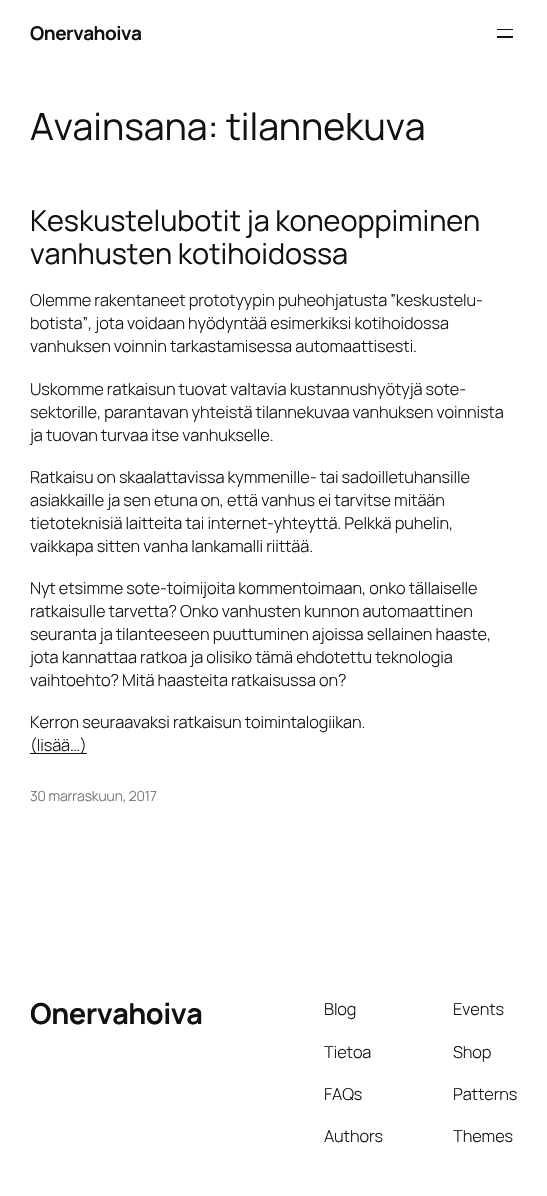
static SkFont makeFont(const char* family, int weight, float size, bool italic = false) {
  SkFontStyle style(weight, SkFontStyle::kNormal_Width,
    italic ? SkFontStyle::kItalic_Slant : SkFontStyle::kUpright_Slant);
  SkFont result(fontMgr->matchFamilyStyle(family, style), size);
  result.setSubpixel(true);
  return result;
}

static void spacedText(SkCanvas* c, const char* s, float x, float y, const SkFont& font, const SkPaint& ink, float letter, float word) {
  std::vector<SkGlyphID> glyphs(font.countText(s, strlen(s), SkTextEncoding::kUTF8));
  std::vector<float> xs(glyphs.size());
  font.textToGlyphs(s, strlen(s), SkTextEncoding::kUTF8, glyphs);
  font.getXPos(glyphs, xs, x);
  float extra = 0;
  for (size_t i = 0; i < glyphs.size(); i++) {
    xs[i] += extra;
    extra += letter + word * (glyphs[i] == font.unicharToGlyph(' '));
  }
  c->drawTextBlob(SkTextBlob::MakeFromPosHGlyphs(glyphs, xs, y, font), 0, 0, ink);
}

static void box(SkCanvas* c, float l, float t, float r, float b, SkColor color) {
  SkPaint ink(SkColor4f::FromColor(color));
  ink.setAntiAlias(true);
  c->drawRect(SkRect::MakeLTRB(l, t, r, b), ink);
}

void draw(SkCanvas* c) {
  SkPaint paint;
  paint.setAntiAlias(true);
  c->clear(0xffffffff);
  SkFont face1 = makeFont("Manrope", 700, 19);
  paint.setColor(0xff111111);
  spacedText(c, "Onervahoiva", 30, 40, face1, paint, -0.5f, 0);
  box(c, 497, 29, 513, 30, 0xff111111);
  box(c, 497, 36, 513, 38, 0xff111111);
  SkFont face2 = makeFont("Manrope", 400, 37.5f);
  spacedText(c, "Avainsana: tilannekuva", 30, 140, face2, paint, -0.1f, 0);
  SkFont face3 = makeFont("Manrope", 400, 28.9f);
  spacedText(c, "Keskustelubotit ja koneoppiminen", 30, 231, face3, paint, -0.1f, 0);
  spacedText(c, "vanhusten kotihoidossa", 30, 264, face3, paint, -0.1f, 0);
  SkFont face4 = makeFont("Manrope", 300, 16.45f);
  spacedText(c, "Olemme rakentaneet prototyypin puheohjatusta ”keskustelu-", 30, 306, face4, paint, -0.1f, 0);
  spacedText(c, "botista”, jota voidaan hyödyntää esimerkiksi kotihoidossa", 30, 329, face4, paint, -0.1f, 0);
  spacedText(c, "vanhuksen voinnin tarkastamisessa automaattisesti.", 30, 352, face4, paint, -0.1f, 0);
  spacedText(c, "Uskomme ratkaisun tuovat valtavia kustannushyötyjä sote-", 30, 395, face4, paint, -0.1f, 0);
  spacedText(c, "sektorille, parantavan yhteistä tilannekuvaa vanhuksen voinnista", 30, 418, face4, paint, -0.1f, 0);
  spacedText(c, "ja tuovan turvaa itse vanhukselle.", 30, 441, face4, paint, -0.1f, 0);
  spacedText(c, "Ratkaisu on skaalattavissa kymmenille- tai sadoilletuhansille", 30, 483, face4, paint, -0.1f, 0);
  spacedText(c, "asiakkaille ja sen etuna on, että vanhus ei tarvitse mitään", 30, 506, face4, paint, -0.1f, 0);
  spacedText(c, "tietoteknisiä laitteita tai internet-yhteyttä. Pelkkä puhelin,", 30, 529, face4, paint, -0.1f, 0);
  spacedText(c, "vaikkapa sitten vanha lankamalli riittää.", 30, 552, face4, paint, -0.1f, 0);
  spacedText(c, "Nyt etsimme sote-toimijoita kommentoimaan, onko tällaiselle", 30, 594, face4, paint, -0.1f, 0);
  spacedText(c, "ratkaisulle tarvetta? Onko vanhusten kunnon automaattinen", 30, 617, face4, paint, -0.1f, 0);
  spacedText(c, "seuranta ja tilanteeseen puuttuminen ajoissa sellainen haaste,", 30, 640, face4, paint, -0.1f, 0);
  spacedText(c, "jota kannattaa ratkoa ja olisiko tämä ehdotettu teknologia", 30, 663, face4, paint, -0.1f, 0);
  spacedText(c, "vaihtoehto? Mitä haasteita ratkaisussa on?", 30, 686, face4, paint, -0.1f, 0);
  spacedText(c, "Kerron seuraavaksi ratkaisun toimintalogiikan.", 30, 728, face4, paint, -0.1f, 0);
  box(c, 30, 753, 87, 754, 0xff111111);
  spacedText(c, "(lisää…)", 30, 751, face4, paint, -0.1f, 0);
  SkFont face5 = makeFont("Manrope", 300, 14);
  paint.setColor(0xff686868);
  spacedText(c, "30 marraskuun, 2017", 30, 801, face5, paint, -0.1f, 0);
  SkFont face6 = makeFont("Manrope", 700, 28.9f);
  paint.setColor(0xff111111);
  spacedText(c, "Onervahoiva", 30, 1024, face6, paint, -0.5f, 0);
  spacedText(c, "Blog", 324, 1015, face4, paint, -0.1f, 0);
  spacedText(c, "Tietoa", 324, 1058, face4, paint, -0.1f, 0);
  spacedText(c, "FAQs", 324, 1100, face4, paint, -0.1f, 0);
  spacedText(c, "Authors", 324, 1142, face4, paint, -0.1f, 0);
  spacedText(c, "Events", 453, 1015, face4, paint, -0.1f, 0);
  spacedText(c, "Shop", 453, 1058, face4, paint, -0.1f, 0);
  spacedText(c, "Patterns", 453, 1100, face4, paint, -0.1f, 0);
  spacedText(c, "Themes", 453, 1142, face4, paint, -0.1f, 0);
}
